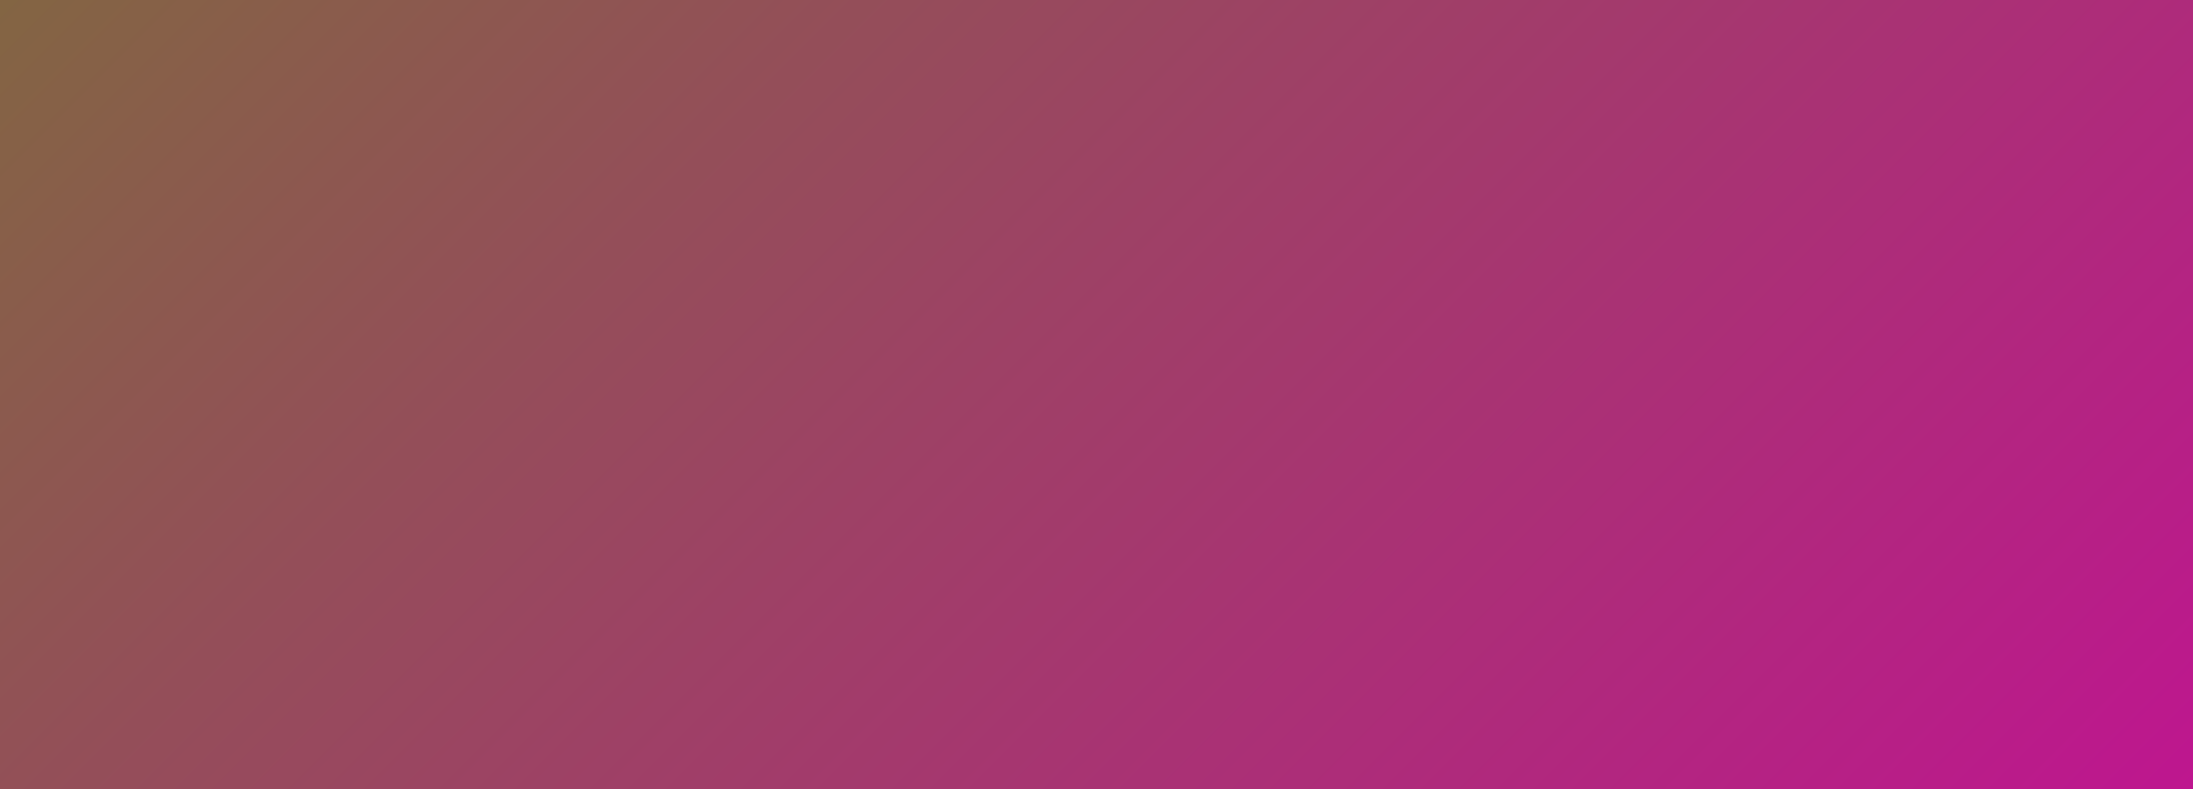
void draw(SkCanvas* c) {
  SkPaint paint;
  paint.setAntiAlias(true);
  c->clear(0xffffffff);
  {
    const SkColor colors[] = {0xff836543, 0xffbe168f};
    const float stops[] = {0, 1};
    const SkPoint ends[] = {{351, -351}, {1843, 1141}};
    paint.setShader(SkGradientShader::MakeLinear(ends, colors, stops, 2, SkTileMode::kClamp));
    paint.setAlpha(255);
  }
  c->drawRect(SkRect::MakeLTRB(0, 0, 2193, 789), paint);
}
